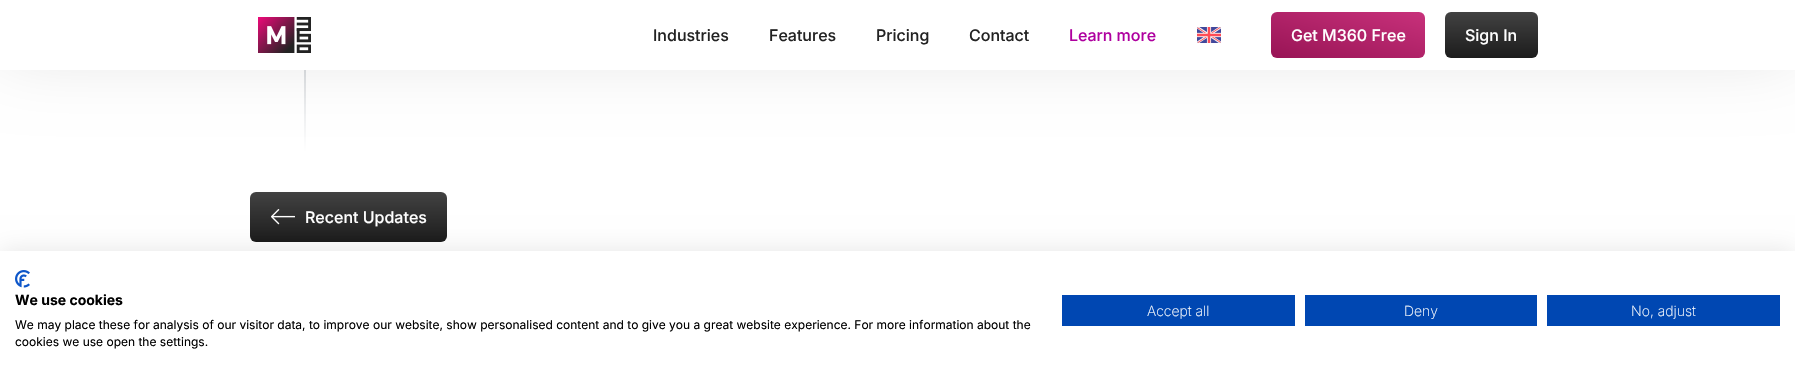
static SkFont makeFont(const char* family, int weight, float size, bool italic = false) {
  SkFontStyle style(weight, SkFontStyle::kNormal_Width,
    italic ? SkFontStyle::kItalic_Slant : SkFontStyle::kUpright_Slant);
  SkFont result(fontMgr->matchFamilyStyle(family, style), size);
  result.setSubpixel(true);
  return result;
}

static void text(SkCanvas* c, const char* s, float x, float y, const SkFont& font, SkColor color) {
  SkPaint ink(SkColor4f::FromColor(color));
  ink.setAntiAlias(true);
  c->drawString(s, x, y, font, ink);
}

static void box(SkCanvas* c, float l, float t, float r, float b, SkColor color) {
  SkPaint ink(SkColor4f::FromColor(color));
  ink.setAntiAlias(true);
  c->drawRect(SkRect::MakeLTRB(l, t, r, b), ink);
}

static void picture(SkCanvas* c, const char* path, float l, float t, float r, float b) {
  auto image = SkImages::DeferredFromEncodedData(SkData::MakeFromFileName(path));
  c->drawImageRect(image, SkRect::MakeLTRB(l, t, r, b), SkSamplingOptions());
}

void draw(SkCanvas* c) {
  SkPaint paint;
  paint.setAntiAlias(true);
  c->clear(0xffffffff);
  {
    const SkColor colors[] = {0xff6e7984, 0xffffffff};
    const float stops[] = {0, 1};
    const SkPoint ends[] = {{305, -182}, {305, 152}};
    paint.setShader(SkGradientShader::MakeLinear(ends, colors, stops, 2, SkTileMode::kClamp));
    paint.setAlpha(255);
  }
  c->drawRect(SkRect::MakeLTRB(304, 70, 306, 152), paint);
  paint.setShader(nullptr);
  paint.setColor(0x24000000);
  paint.setMaskFilter(SkMaskFilter::MakeBlur(kNormal_SkBlurStyle, 36.5f));
  c->drawRect(SkRect::MakeLTRB(0, -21, 1795, 49), paint);
  paint.setMaskFilter(nullptr);
  box(c, 0, 0, 1795, 70, 0xffffffff);
  picture(c, "img_01.png", 258, 17, 311, 53);
  SkFont face1 = makeFont("Inter", 500, 16);
  text(c, "Industries", 653, 41, face1, 0xff232323);
  text(c, "Features", 769, 41, face1, 0xff232323);
  text(c, "Pricing", 876, 41, face1, 0xff232323);
  text(c, "Contact", 969, 41, face1, 0xff232323);
  text(c, "Learn more", 1069, 41, face1, 0xffaf009f);
  picture(c, "img_02.png", 1197, 27, 1221, 43);
  {
    const SkColor colors[] = {0xff981455, 0xffc8317b};
    const float stops[] = {0, 1};
    const SkPoint ends[] = {{1336, 77}, {1360, -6.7f}};
    paint.setShader(SkGradientShader::MakeLinear(ends, colors, stops, 2, SkTileMode::kClamp));
    paint.setAlpha(255);
  }
  c->drawRoundRect(SkRect::MakeLTRB(1271, 12, 1425, 58), 6, 6, paint);
  text(c, "Get M360 Free", 1291, 41, face1, 0xffffffff);
  {
    const SkColor colors[] = {0xff1c1c1c, 0xff424242};
    const float stops[] = {0, 1};
    const SkPoint ends[] = {{1492, 58}, {1492, 12}};
    paint.setShader(SkGradientShader::MakeLinear(ends, colors, stops, 2, SkTileMode::kClamp));
    paint.setAlpha(255);
  }
  c->drawRoundRect(SkRect::MakeLTRB(1445, 12, 1538, 58), 6, 6, paint);
  text(c, "Sign In", 1465, 41, face1, 0xffffffff);
  {
    const SkColor colors[] = {0xff1c1c1c, 0xff424242};
    const float stops[] = {0, 1};
    const SkPoint ends[] = {{349, 242}, {349, 192}};
    paint.setShader(SkGradientShader::MakeLinear(ends, colors, stops, 2, SkTileMode::kClamp));
    paint.setAlpha(255);
  }
  c->drawRoundRect(SkRect::MakeLTRB(250, 192, 447, 242), 6, 6, paint);
  picture(c, "img_03.png", 271, 209, 295, 225);
  text(c, "Recent Updates", 305, 223, face1, 0xffffffff);
  paint.setShader(nullptr);
  paint.setColor(0x1a000000);
  paint.setMaskFilter(SkMaskFilter::MakeBlur(kNormal_SkBlurStyle, 12));
  c->drawRect(SkRect::MakeLTRB(0, 251, 1795, 378), paint);
  paint.setMaskFilter(nullptr);
  box(c, 0, 251, 1795, 378, 0xffffffff);
  picture(c, "img_04.png", 15, 270, 30, 288);
  SkFont face2 = makeFont("Inter", 700, 14);
  text(c, "We use cookies", 15, 305, face2, 0xff000000);
  SkFont face3 = makeFont("Inter", 400, 12);
  text(c, "We may place these for analysis of our visitor data, to improve our website, show personalised content and to give you a great website experience. For more information about the", 15, 329, face3, 0xff000000);
  text(c, "cookies we use open the settings.", 15, 346, face3, 0xff000000);
  box(c, 1062, 295, 1295, 326, 0xff0047b2);
  SkFont face4 = makeFont("Inter", 200, 14);
  text(c, "Accept all", 1147, 316, face4, 0xffffffff);
  box(c, 1305, 295, 1537, 326, 0xff0047b2);
  text(c, "Deny", 1404, 316, face4, 0xffffffff);
  box(c, 1547, 295, 1780, 326, 0xff0047b2);
  text(c, "No, adjust", 1631, 316, face4, 0xffffffff);
}
